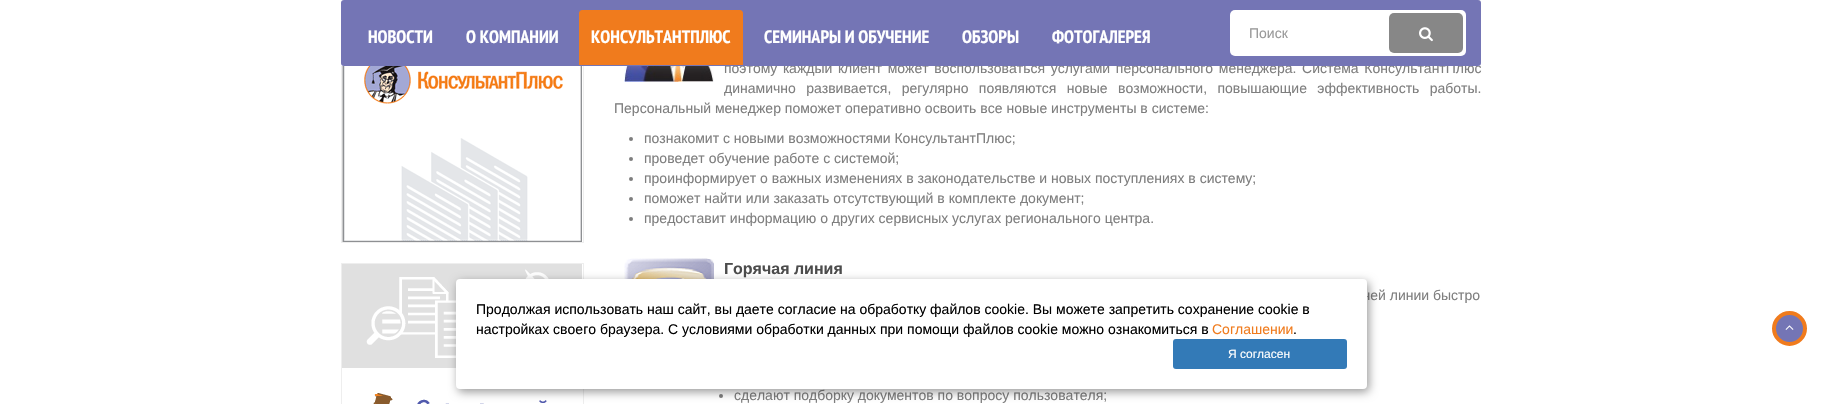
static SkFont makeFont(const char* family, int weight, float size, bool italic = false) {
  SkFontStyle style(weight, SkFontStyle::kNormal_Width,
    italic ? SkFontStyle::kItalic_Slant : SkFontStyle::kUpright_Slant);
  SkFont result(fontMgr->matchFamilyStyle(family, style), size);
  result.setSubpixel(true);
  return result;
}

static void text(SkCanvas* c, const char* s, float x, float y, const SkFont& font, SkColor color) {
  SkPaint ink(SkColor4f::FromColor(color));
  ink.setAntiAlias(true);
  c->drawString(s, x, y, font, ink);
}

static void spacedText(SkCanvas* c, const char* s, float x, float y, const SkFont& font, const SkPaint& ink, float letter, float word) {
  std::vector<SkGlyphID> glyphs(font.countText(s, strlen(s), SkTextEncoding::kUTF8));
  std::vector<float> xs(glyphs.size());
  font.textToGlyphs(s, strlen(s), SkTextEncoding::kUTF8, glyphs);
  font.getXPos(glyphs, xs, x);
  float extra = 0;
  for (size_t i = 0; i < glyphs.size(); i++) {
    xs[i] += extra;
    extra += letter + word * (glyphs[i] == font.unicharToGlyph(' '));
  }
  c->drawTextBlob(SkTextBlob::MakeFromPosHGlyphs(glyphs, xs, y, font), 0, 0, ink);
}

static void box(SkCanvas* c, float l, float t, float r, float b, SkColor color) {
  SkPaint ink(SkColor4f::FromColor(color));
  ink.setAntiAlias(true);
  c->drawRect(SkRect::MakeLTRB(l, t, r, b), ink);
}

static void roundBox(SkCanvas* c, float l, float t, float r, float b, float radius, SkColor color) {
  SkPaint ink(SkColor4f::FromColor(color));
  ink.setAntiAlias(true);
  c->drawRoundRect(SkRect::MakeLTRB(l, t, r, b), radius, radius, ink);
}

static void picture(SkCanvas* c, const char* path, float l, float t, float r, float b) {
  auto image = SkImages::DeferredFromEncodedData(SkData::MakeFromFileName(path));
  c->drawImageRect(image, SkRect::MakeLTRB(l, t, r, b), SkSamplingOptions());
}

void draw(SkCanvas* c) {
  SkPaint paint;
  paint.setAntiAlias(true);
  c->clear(0xffffffff);
  paint.setStyle(SkPaint::kStroke_Style);
  paint.setStrokeWidth(1);
  paint.setColor(0xffeeeeee);
  c->drawRect(SkRect::MakeLTRB(341.5f, -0.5f, 583.5f, 242.5f), paint);
  SkFont face1 = makeFont("Liberation Sans", 400, 14);
  paint.setStyle(SkPaint::kFill_Style);
  paint.setColor(0xff7e7e7e);
  spacedText(c, "поэтому каждый клиент может воспользоваться услугами персонального менеджера. Система КонсультантПлюс", 724, 73, face1, paint, 0, 1.75f);
  box(c, 341, 0, 1480, 66, 0xffffffff);
  roundBox(c, 341, 0, 1481, 66, 3, 0xff7475b5);
  SkFont face2 = makeFont("PT Sans Narrow", 700, 18);
  text(c, "НОВОСТИ", 368, 43, face2, 0xffffffff);
  text(c, "О КОМПАНИИ", 466, 43, face2, 0xffffffff);
  paint.setColor(0xfff07b1d);
  c->drawPath(SkPathBuilder().moveTo(582, 10).lineTo(740, 10).cubicTo(741.5f, 10, 743, 11.5f, 743, 13).lineTo(743, 65).lineTo(579, 65).lineTo(579, 13).cubicTo(579, 11.5f, 580.5f, 10, 582, 10).close().detach(), paint);
  text(c, "КОНСУЛЬТАНТПЛЮС", 591, 43, face2, 0xffffffff);
  text(c, "СЕМИНАРЫ И ОБУЧЕНИЕ", 764, 43, face2, 0xffffffff);
  text(c, "ОБЗОРЫ", 962, 43, face2, 0xffffffff);
  text(c, "ФОТОГАЛЕРЕЯ", 1052, 43, face2, 0xffffffff);
  roundBox(c, 1230, 10, 1466, 56, 5, 0xffffffff);
  text(c, "Поиск", 1249, 38, face1, 0xff999999);
  roundBox(c, 1389, 13, 1463, 53, 5, 0xff878787);
  picture(c, "img_01.png", 1419, 27, 1433, 42);
  picture(c, "img_02.png", 342, 66, 582, 242);
  paint.setStyle(SkPaint::kStroke_Style);
  paint.setColor(0xffeeeeee);
  c->drawRect(SkRect::MakeLTRB(341.5f, 263.5f, 583.5f, 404.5f), paint);
  picture(c, "img_03.png", 342, 264, 582, 404);
  paint.setStyle(SkPaint::kFill_Style);
  paint.setColor(0xff7e7e7e);
  spacedText(c, "динамично развивается, регулярно появляются новые возможности, повышающие эффективность работы.", 724, 93, face1, paint, 0, 6.5f);
  text(c, "Персональный менеджер поможет оперативно освоить все новые инструменты в системе:", 614, 113, face1, 0xff7e7e7e);
  picture(c, "img_04.png", 624, 66, 714, 82);
  c->drawCircle(631, 139, 2, paint);
  text(c, "познакомит с новыми возможностями КонсультантПлюс;", 644, 143, face1, 0xff7e7e7e);
  c->drawCircle(631, 159, 2, paint);
  text(c, "проведет обучение работе с системой;", 644, 163, face1, 0xff7e7e7e);
  c->drawCircle(631, 179, 2, paint);
  text(c, "проинформирует о важных изменениях в законодательстве и новых поступлениях в систему;", 644, 183, face1, 0xff7e7e7e);
  c->drawCircle(631, 199, 2, paint);
  text(c, "поможет найти или заказать отсутствующий в комплекте документ;", 644, 203, face1, 0xff7e7e7e);
  c->drawCircle(631, 219, 2, paint);
  text(c, "предоставит информацию о других сервисных услугах регионального центра.", 644, 223, face1, 0xff7e7e7e);
  picture(c, "img_05.png", 624, 258, 714, 279);
  SkFont face3 = makeFont("Liberation Sans", 700, 16);
  text(c, "Горячая линия", 724, 274, face3, 0xff4c4c4c);
  text(c, "чей линии быстро", 1363, 300, face1, 0xff7e7e7e);
  c->drawCircle(721, 396, 2, paint);
  text(c, "сделают подборку документов по вопросу пользователя;", 734, 400, face1, 0xff7e7e7e);
  paint.setColor(0x66000000);
  paint.setMaskFilter(SkMaskFilter::MakeBlur(kNormal_SkBlurStyle, 5));
  c->drawRoundRect(SkRect::MakeLTRB(458, 282, 1369, 392), 4, 4, paint);
  paint.setMaskFilter(nullptr);
  roundBox(c, 456, 279, 1367, 389, 4, 0xffffffff);
  text(c, "Продолжая использовать наш сайт, вы даете согласие на обработку файлов cookie. Вы можете запретить сохранение cookie в", 476, 314, face1, 0xff000000);
  text(c, "настройках своего браузера. С условиями обработки данных при помощи файлов cookie можно ознакомиться в", 476, 334, face1, 0xff000000);
  text(c, "Соглашении", 1212, 334, face1, 0xfff07b1d);
  text(c, ".", 1293, 334, face1, 0xff000000);
  roundBox(c, 1173, 339, 1347, 369, 3, 0xff337ab7);
  SkFont face4 = makeFont("Liberation Sans", 400, 12);
  text(c, "Я согласен", 1228, 358, face4, 0xffffffff);
  paint.setColor(0xff7475b5);
  c->drawCircle(1789.5f, 328.5f, 15.5f, paint);
  paint.setStyle(SkPaint::kStroke_Style);
  paint.setStrokeWidth(4);
  paint.setColor(0xfff07b1d);
  c->drawCircle(1789.5f, 328.5f, 15.5f, paint);
  picture(c, "img_06.png", 1785, 325, 1794, 330);
}
